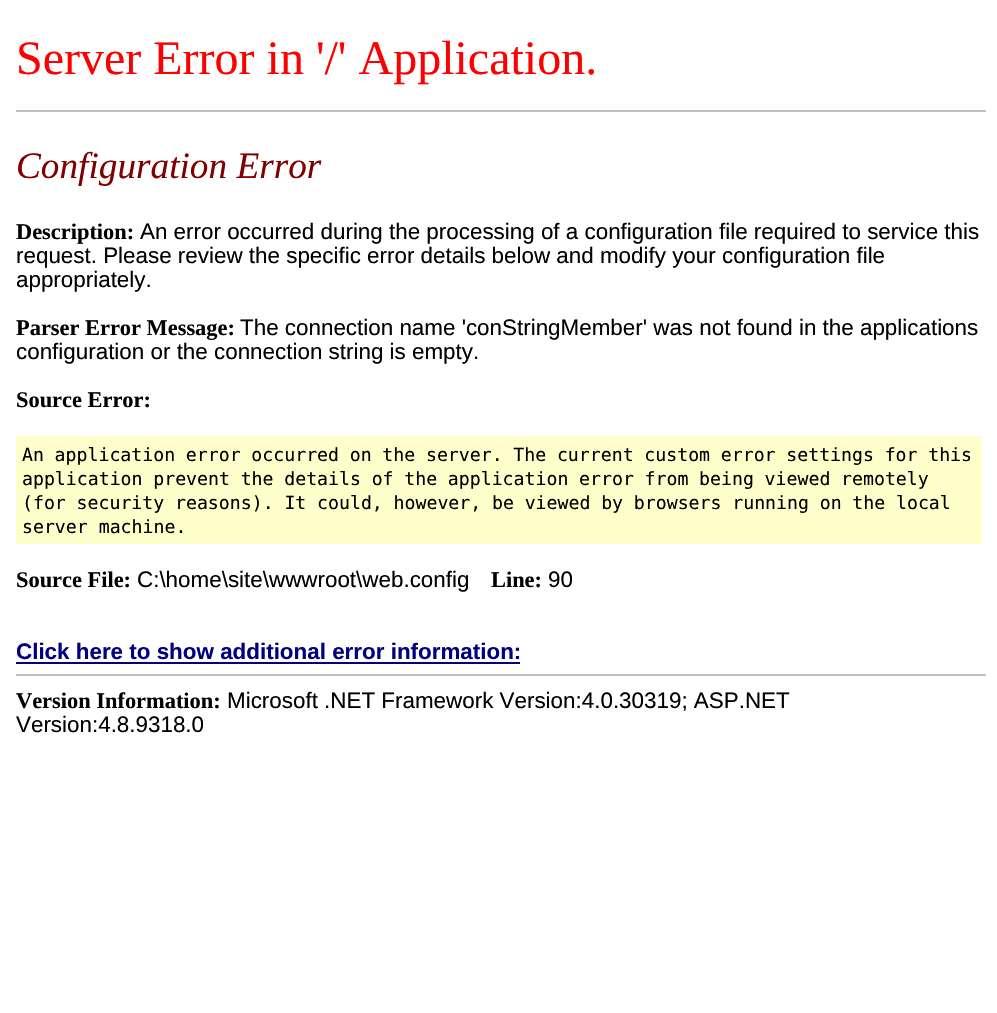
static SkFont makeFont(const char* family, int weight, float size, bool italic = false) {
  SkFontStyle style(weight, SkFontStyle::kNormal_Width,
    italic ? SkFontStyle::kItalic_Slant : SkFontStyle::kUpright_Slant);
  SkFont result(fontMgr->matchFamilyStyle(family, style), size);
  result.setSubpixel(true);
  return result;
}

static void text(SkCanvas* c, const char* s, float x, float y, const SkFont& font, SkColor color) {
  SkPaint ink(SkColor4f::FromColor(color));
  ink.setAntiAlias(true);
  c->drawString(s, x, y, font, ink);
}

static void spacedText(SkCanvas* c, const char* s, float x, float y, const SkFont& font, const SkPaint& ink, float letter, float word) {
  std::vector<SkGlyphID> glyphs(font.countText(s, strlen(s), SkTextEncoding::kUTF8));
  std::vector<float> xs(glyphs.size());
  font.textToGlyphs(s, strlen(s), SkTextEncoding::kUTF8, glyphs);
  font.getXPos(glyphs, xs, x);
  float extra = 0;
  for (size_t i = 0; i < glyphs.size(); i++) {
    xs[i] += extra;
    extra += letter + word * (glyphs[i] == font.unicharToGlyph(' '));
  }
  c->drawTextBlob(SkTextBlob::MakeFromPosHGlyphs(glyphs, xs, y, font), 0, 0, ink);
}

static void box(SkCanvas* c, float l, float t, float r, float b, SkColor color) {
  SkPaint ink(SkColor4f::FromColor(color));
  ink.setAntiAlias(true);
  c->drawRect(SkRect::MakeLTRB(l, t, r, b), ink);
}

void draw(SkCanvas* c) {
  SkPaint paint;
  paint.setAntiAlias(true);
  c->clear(0xffffffff);
  SkFont face1 = makeFont("Liberation Serif", 400, 48);
  text(c, "Server Error in '/' Application.", 16, 74, face1, 0xffff0000);
  box(c, 16, 110, 986, 112, 0xffc0c0c0);
  SkFont face2 = makeFont("Liberation Serif", 400, 37.25f, true);
  text(c, "Configuration Error", 16, 178, face2, 0xff800000);
  SkFont face3 = makeFont("Liberation Serif", 700, 22.4f);
  text(c, "Description:", 16, 239, face3, 0xff000000);
  SkFont face4 = makeFont("Liberation Sans", 400, 22.4f);
  text(c, "An error occurred during the processing of a configuration file required to service this", 140, 239, face4, 0xff000000);
  text(c, "request. Please review the specific error details below and modify your configuration file", 16, 263, face4, 0xff000000);
  text(c, "appropriately.", 16, 287, face4, 0xff000000);
  text(c, "Parser Error Message:", 16, 335, face3, 0xff000000);
  text(c, "The connection name 'conStringMember' was not found in the applications", 240, 335, face4, 0xff000000);
  text(c, "configuration or the connection string is empty.", 16, 359, face4, 0xff000000);
  text(c, "Source Error:", 16, 407, face3, 0xff000000);
  box(c, 16, 436, 982, 544, 0xffffffcc);
  SkFont face5 = makeFont("DejaVu Sans Mono", 400, 18.2f);
  paint.setColor(0xff000000);
  spacedText(c, "An application error occurred on the server. The current custom error settings for this", 22, 461, face5, paint, 0, -0.25f);
  spacedText(c, "application prevent the details of the application error from being viewed remotely", 22, 485, face5, paint, 0, -0.25f);
  spacedText(c, "(for security reasons). It could, however, be viewed by browsers running on the local", 22, 509, face5, paint, 0, -0.2f);
  text(c, "server machine.", 22, 533, face5, 0xff000000);
  text(c, "Source File:", 16, 587, face3, 0xff000000);
  text(c, "C:\\home\\site\\wwwroot\\web.config", 137, 587, face4, 0xff000000);
  text(c, "Line:", 491, 587, face3, 0xff000000);
  text(c, "90", 548, 587, face4, 0xff000000);
  SkFont face6 = makeFont("Liberation Sans", 700, 22.4f);
  text(c, "Click here to show additional error information:", 16, 659, face6, 0xff000080);
  box(c, 16, 662, 520, 664, 0xff000080);
  box(c, 16, 674, 986, 676, 0xffc0c0c0);
  text(c, "Version Information:", 16, 708, face3, 0xff000000);
  text(c, "Microsoft .NET Framework Version:4.0.30319; ASP.NET", 227, 708, face4, 0xff000000);
  text(c, "Version:4.8.9318.0", 16, 732, face4, 0xff000000);
}
